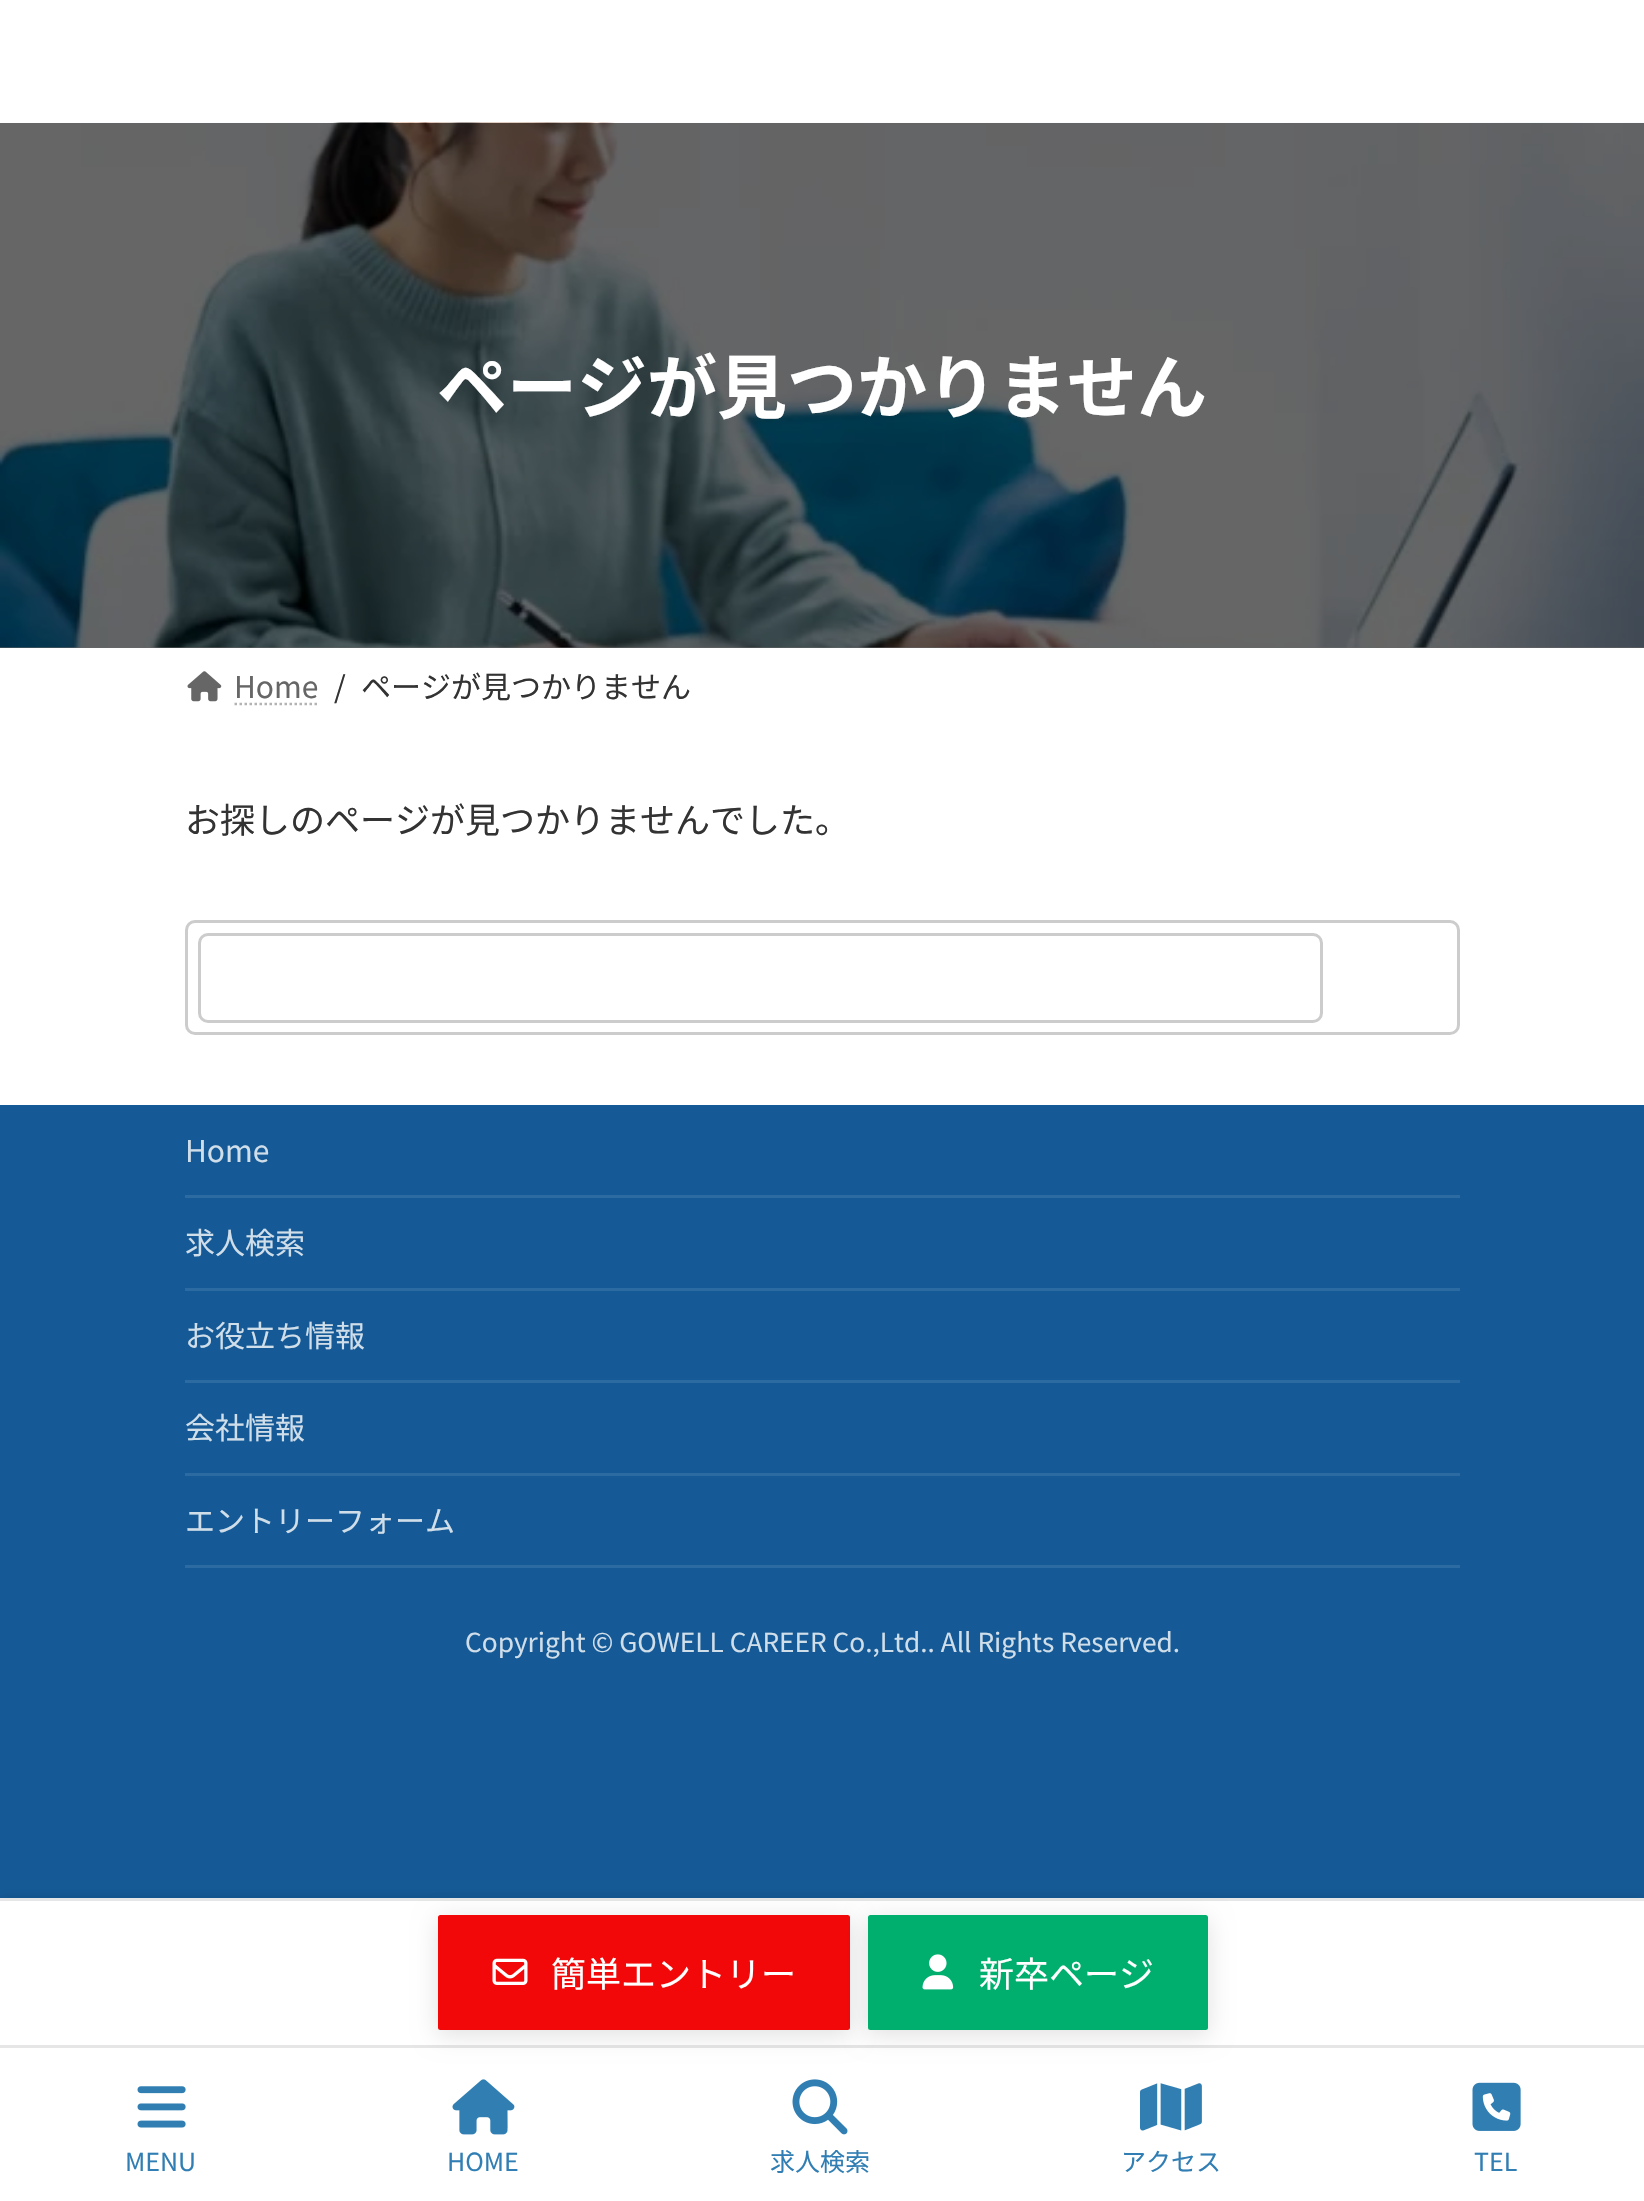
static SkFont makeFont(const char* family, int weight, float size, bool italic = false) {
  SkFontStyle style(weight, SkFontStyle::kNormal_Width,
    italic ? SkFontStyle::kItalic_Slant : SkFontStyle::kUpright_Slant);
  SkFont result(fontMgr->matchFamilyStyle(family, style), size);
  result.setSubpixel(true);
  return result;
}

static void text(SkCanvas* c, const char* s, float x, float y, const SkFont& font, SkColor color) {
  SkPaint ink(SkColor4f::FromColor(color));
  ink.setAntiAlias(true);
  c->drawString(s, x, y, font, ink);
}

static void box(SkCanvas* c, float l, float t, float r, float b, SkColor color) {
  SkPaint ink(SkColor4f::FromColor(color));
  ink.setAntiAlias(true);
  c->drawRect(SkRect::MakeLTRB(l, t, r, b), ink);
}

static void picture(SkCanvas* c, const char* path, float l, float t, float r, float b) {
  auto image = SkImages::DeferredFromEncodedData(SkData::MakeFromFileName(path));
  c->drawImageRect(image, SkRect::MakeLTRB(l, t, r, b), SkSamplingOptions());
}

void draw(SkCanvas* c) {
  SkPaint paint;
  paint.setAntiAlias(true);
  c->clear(0xffffffff);
  box(c, 0, 647, 1644, 648, 0xff666666);
  picture(c, "img_01.png", 0, 122, 1644, 648);
  SkFont face1 = makeFont("Noto Sans JP", 700, 70);
  text(c, "ページが見つかりません", 437, 413, face1, 0xffffffff);
  picture(c, "img_02.png", 187, 671, 222, 702);
  SkFont face2 = makeFont("Noto Sans JP", 400, 30);
  text(c, "Home", 234, 698, face2, 0xff666666);
  paint.setStyle(SkPaint::kStroke_Style);
  paint.setStrokeWidth(2.5f);
  paint.setColor(0xffb3b3b3);
  paint.setPathEffect(SkDashPathEffect::Make({{2.5f, 2.5f}}, 0));
  c->drawPath(SkPathBuilder().moveTo(234.5f, 704).lineTo(319, 704).detach(), paint);
  paint.setPathEffect(nullptr);
  text(c, "/", 334, 698, face2, 0xff333333);
  text(c, "ページが見つかりません", 361, 698, face2, 0xff333333);
  SkFont face3 = makeFont("Noto Sans JP", 400, 35);
  text(c, "お探しのページが見つかりませんでした。", 185, 833, face3, 0xff333333);
  paint.setStrokeWidth(3);
  paint.setColor(0xffcccccc);
  c->drawRoundRect(SkRect::MakeLTRB(186.5f, 921.5f, 1458.5f, 1033.5f), 8.5f, 8.5f, paint);
  c->drawRoundRect(SkRect::MakeLTRB(199.5f, 934.5f, 1321.5f, 1021.5f), 8.5f, 8.5f, paint);
  box(c, 0, 1105, 1644, 1898, 0xff155a96);
  box(c, 185, 1195, 1460, 1198, 0xff2c6ba1);
  text(c, "Home", 185, 1162, face2, 0xffd0deea);
  box(c, 185, 1288, 1460, 1291, 0xff2c6ba1);
  text(c, "求人検索", 185, 1254, face2, 0xffd0deea);
  box(c, 185, 1380, 1460, 1383, 0xff2c6ba1);
  text(c, "お役立ち情報", 185, 1347, face2, 0xffd0deea);
  box(c, 185, 1473, 1460, 1476, 0xff2c6ba1);
  text(c, "会社情報", 185, 1439, face2, 0xffd0deea);
  box(c, 185, 1565, 1460, 1568, 0xff2c6ba1);
  text(c, "エントリーフォーム", 185, 1532, face2, 0xffd0deea);
  SkFont face4 = makeFont("Noto Sans JP", 400, 26.25f);
  text(c, "Copyright © GOWELL CAREER Co.,Ltd.. All Rights Reserved.", 465, 1652, face4, 0xffd0deea);
  paint.setStyle(SkPaint::kFill_Style);
  paint.setColor(0x1f000000);
  paint.setMaskFilter(SkMaskFilter::MakeBlur(kNormal_SkBlurStyle, 6));
  c->drawRect(SkRect::MakeLTRB(0, 1898, 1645, 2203), paint);
  paint.setMaskFilter(nullptr);
  box(c, 0, 1901, 1644, 2201, 0xffffffff);
  box(c, 0, 1898, 1644, 1901, 0xffe6e6e6);
  box(c, 0, 2045, 1644, 2048, 0xffe6e6e6);
  paint.setMaskFilter(SkMaskFilter::MakeBlur(kNormal_SkBlurStyle, 12.5f));
  c->drawRoundRect(SkRect::MakeLTRB(438, 1920, 850, 2035), 2.5f, 2.5f, paint);
  paint.setMaskFilter(nullptr);
  paint.setColor(0xfff20808);
  c->drawRoundRect(SkRect::MakeLTRB(439.5f, 1916.5f, 848.5f, 2028.5f), 1, 1, paint);
  paint.setStyle(SkPaint::kStroke_Style);
  c->drawRoundRect(SkRect::MakeLTRB(439.5f, 1916.5f, 848.5f, 2028.5f), 1, 1, paint);
  picture(c, "img_03.png", 492, 1958, 528, 1985);
  text(c, "簡単エントリー", 551, 1987, face3, 0xffffffff);
  paint.setStyle(SkPaint::kFill_Style);
  paint.setColor(0x1f000000);
  paint.setMaskFilter(SkMaskFilter::MakeBlur(kNormal_SkBlurStyle, 12.5f));
  c->drawRoundRect(SkRect::MakeLTRB(868, 1920, 1208, 2035), 2.5f, 2.5f, paint);
  paint.setMaskFilter(nullptr);
  paint.setColor(0xff00ae6e);
  c->drawRoundRect(SkRect::MakeLTRB(869.5f, 1916.5f, 1206.5f, 2028.5f), 1, 1, paint);
  paint.setStyle(SkPaint::kStroke_Style);
  c->drawRoundRect(SkRect::MakeLTRB(869.5f, 1916.5f, 1206.5f, 2028.5f), 1, 1, paint);
  picture(c, "img_04.png", 922, 1954, 954, 1990);
  text(c, "新卒ページ", 979, 1987, face3, 0xffffffff);
  picture(c, "img_05.png", 137, 2086, 186, 2128);
  SkFont face5 = makeFont("Noto Sans JP", 400, 25);
  text(c, "MENU", 125, 2171, face5, 0xff307eb3);
  picture(c, "img_06.png", 452, 2079, 515, 2135);
  text(c, "HOME", 447, 2171, face5, 0xff307eb3);
  picture(c, "img_07.png", 792, 2079, 848, 2135);
  text(c, "求人検索", 770, 2171, face5, 0xff307eb3);
  picture(c, "img_08.png", 1140, 2083, 1202, 2131);
  text(c, "アクセス", 1121, 2171, face5, 0xff307eb3);
  picture(c, "img_09.png", 1472, 2082, 1521, 2131);
  text(c, "TEL", 1474, 2171, face5, 0xff307eb3);
}
